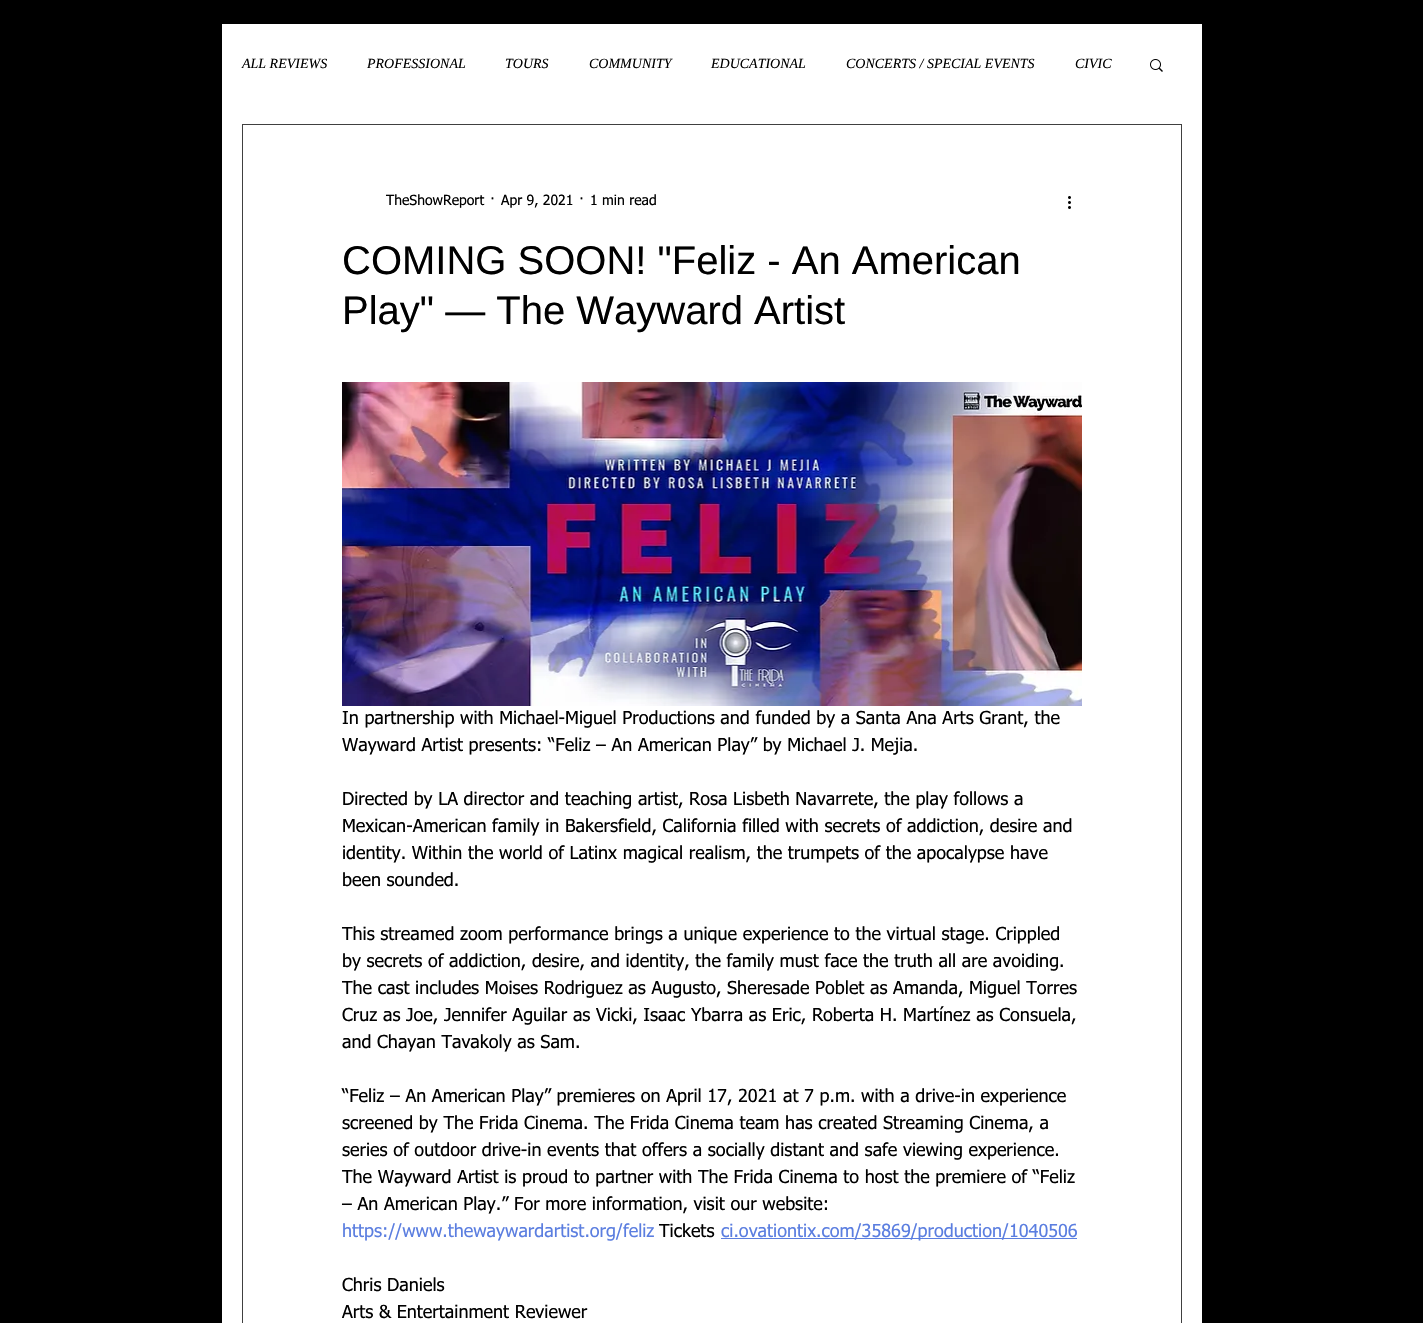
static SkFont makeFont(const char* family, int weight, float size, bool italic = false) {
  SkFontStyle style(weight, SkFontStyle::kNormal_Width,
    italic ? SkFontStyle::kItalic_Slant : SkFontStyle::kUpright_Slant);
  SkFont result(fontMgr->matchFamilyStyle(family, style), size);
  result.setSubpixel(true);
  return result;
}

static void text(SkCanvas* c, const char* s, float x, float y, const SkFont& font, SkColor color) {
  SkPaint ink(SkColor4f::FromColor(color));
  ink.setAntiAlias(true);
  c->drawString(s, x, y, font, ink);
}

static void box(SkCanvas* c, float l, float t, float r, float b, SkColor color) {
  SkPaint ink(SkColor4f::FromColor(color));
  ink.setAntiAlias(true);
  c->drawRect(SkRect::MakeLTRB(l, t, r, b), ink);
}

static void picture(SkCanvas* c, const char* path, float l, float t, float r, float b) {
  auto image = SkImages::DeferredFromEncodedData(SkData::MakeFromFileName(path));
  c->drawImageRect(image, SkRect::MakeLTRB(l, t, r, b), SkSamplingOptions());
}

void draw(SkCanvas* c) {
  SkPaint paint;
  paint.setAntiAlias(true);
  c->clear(0xff000000);
  box(c, 222, 24, 1202, 1323, 0xffffffff);
  SkFont face1 = makeFont("Liberation Serif", 400, 14, true);
  text(c, "ALL REVIEWS", 242, 68, face1, 0xff000000);
  text(c, "PROFESSIONAL", 367, 68, face1, 0xff000000);
  text(c, "TOURS", 505, 68, face1, 0xff000000);
  text(c, "COMMUNITY", 589, 68, face1, 0xff000000);
  text(c, "EDUCATIONAL", 711, 68, face1, 0xff000000);
  text(c, "CONCERTS / SPECIAL EVENTS", 846, 68, face1, 0xff000000);
  text(c, "CIVIC", 1075, 68, face1, 0xff000000);
  picture(c, "img_01.png", 1150, 59, 1163, 72);
  paint.setStyle(SkPaint::kStroke_Style);
  paint.setStrokeWidth(1);
  paint.setColor(0xff404040);
  c->drawRect(SkRect::MakeLTRB(242.5f, 124.5f, 1181.5f, 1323.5f), paint);
  SkFont face2 = makeFont("tahoma", 400, 14);
  text(c, "TheShowReport", 386, 205, face2, 0xff000000);
  text(c, "·", 490, 205, face2, 0xff000000);
  text(c, "Apr 9, 2021", 501, 205, face2, 0xff000000);
  text(c, "·", 579, 205, face2, 0xff000000);
  text(c, "1 min read", 590, 205, face2, 0xff000000);
  picture(c, "img_02.png", 1068, 196, 1071, 209);
  SkFont face3 = makeFont("Liberation Sans", 400, 40);
  text(c, "COMING SOON! \"Feliz - An American", 342, 274, face3, 0xff000000);
  text(c, "Play\" — The Wayward Artist", 342, 324, face3, 0xff000000);
  picture(c, "img_03.png", 342, 382, 1082, 706);
  SkFont face4 = makeFont("tahoma", 400, 18);
  text(c, "In partnership with Michael-Miguel Productions and funded by a Santa Ana Arts Grant, the", 342, 724, face4, 0xff000000);
  text(c, "Wayward Artist presents: “Feliz – An American Play” by Michael J. Mejia.", 342, 751, face4, 0xff000000);
  text(c, "Directed by LA director and teaching artist, Rosa Lisbeth Navarrete, the play follows a", 342, 805, face4, 0xff000000);
  text(c, "Mexican-American family in Bakersfield, California filled with secrets of addiction, desire and", 342, 832, face4, 0xff000000);
  text(c, "identity. Within the world of Latinx magical realism, the trumpets of the apocalypse have", 342, 859, face4, 0xff000000);
  text(c, "been sounded.", 342, 886, face4, 0xff000000);
  text(c, "This streamed zoom performance brings a unique experience to the virtual stage. Crippled", 342, 940, face4, 0xff000000);
  text(c, "by secrets of addiction, desire, and identity, the family must face the truth all are avoiding.", 342, 967, face4, 0xff000000);
  text(c, "The cast includes Moises Rodriguez as Augusto, Sheresade Poblet as Amanda, Miguel Torres", 342, 994, face4, 0xff000000);
  text(c, "Cruz as Joe, Jennifer Aguilar as Vicki, Isaac Ybarra as Eric, Roberta H. Martínez as Consuela,", 342, 1021, face4, 0xff000000);
  text(c, "and Chayan Tavakoly as Sam.", 342, 1048, face4, 0xff000000);
  text(c, "“Feliz – An American Play” premieres on April 17, 2021 at 7 p.m. with a drive-in experience", 342, 1102, face4, 0xff000000);
  text(c, "screened by The Frida Cinema. The Frida Cinema team has created Streaming Cinema, a", 342, 1129, face4, 0xff000000);
  text(c, "series of outdoor drive-in events that offers a socially distant and safe viewing experience.", 342, 1156, face4, 0xff000000);
  text(c, "The Wayward Artist is proud to partner with The Frida Cinema to host the premiere of “Feliz", 342, 1183, face4, 0xff000000);
  text(c, "– An American Play.” For more information, visit our website:", 342, 1210, face4, 0xff000000);
  text(c, "https://www.thewaywardartist.org/feliz", 342, 1237, face4, 0xff5b7ee0);
  text(c, "Tickets", 659, 1237, face4, 0xff000000);
  box(c, 721, 1238, 1077, 1239, 0xff5b7ee0);
  text(c, "ci.ovationtix.com/35869/production/1040506", 721, 1237, face4, 0xff5b7ee0);
  text(c, "Chris Daniels", 342, 1291, face4, 0xff000000);
  text(c, "Arts & Entertainment Reviewer", 342, 1318, face4, 0xff000000);
}
